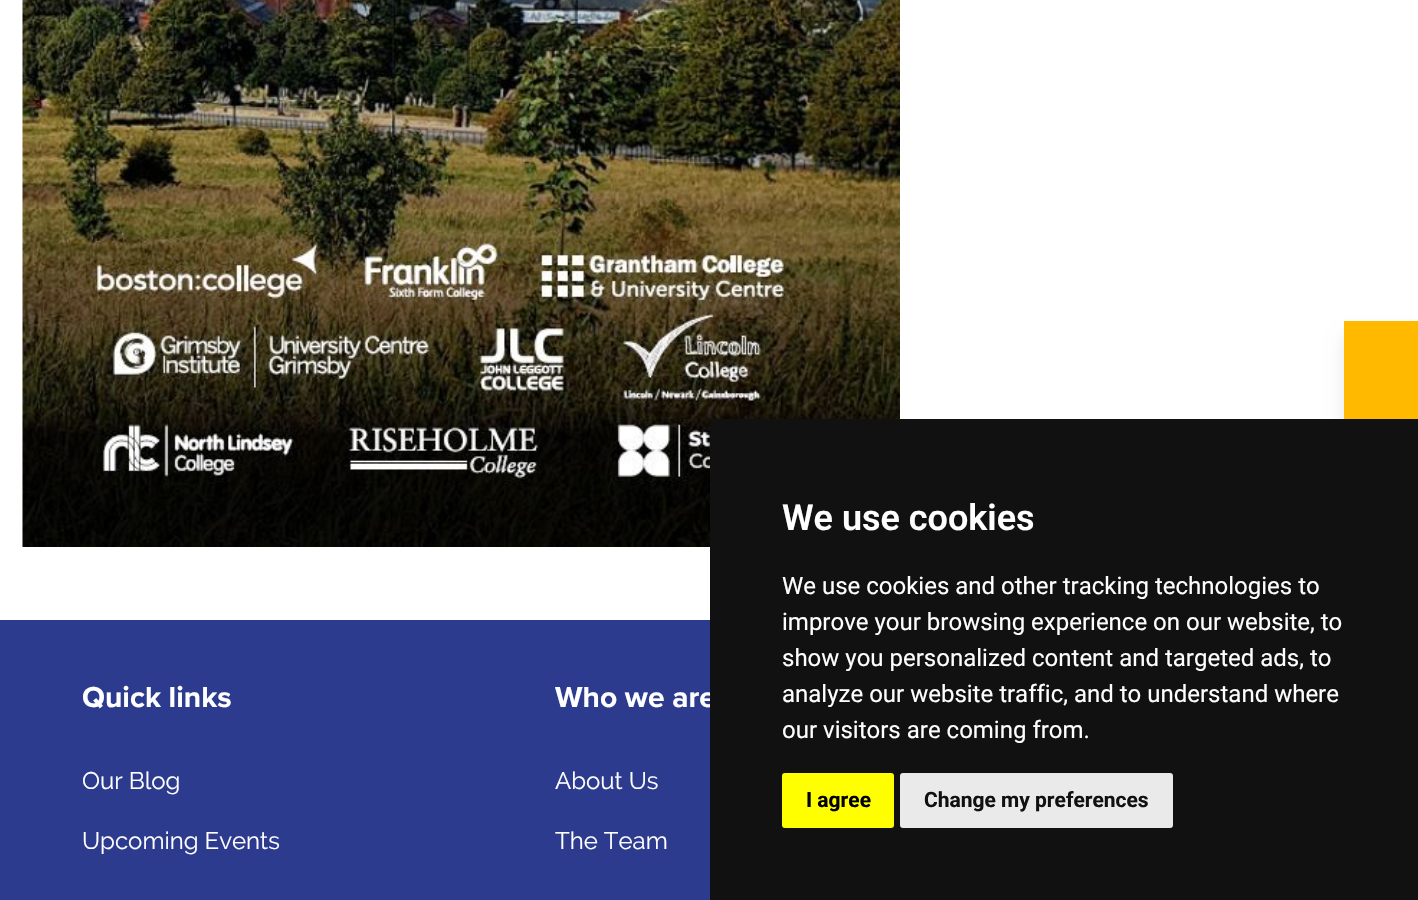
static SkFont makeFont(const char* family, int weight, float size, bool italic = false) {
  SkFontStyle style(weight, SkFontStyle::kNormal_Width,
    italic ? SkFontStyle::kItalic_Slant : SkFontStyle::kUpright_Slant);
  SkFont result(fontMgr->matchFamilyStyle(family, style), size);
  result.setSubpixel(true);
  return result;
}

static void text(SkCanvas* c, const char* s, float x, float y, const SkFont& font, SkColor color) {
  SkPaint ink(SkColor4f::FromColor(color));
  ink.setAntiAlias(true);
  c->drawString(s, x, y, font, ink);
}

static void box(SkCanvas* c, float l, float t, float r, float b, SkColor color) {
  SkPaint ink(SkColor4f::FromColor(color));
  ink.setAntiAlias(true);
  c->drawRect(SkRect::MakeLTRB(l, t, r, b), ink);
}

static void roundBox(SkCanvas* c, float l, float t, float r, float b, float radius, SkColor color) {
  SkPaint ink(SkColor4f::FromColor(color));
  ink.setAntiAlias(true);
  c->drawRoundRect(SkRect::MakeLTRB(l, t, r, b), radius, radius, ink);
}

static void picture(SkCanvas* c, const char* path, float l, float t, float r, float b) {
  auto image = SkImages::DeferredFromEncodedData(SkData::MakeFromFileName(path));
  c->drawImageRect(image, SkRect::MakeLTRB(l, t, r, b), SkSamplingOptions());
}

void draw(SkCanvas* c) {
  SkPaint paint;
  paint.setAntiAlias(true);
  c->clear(0xffffffff);
  paint.setColor(0x1a000000);
  paint.setMaskFilter(SkMaskFilter::MakeBlur(kNormal_SkBlurStyle, 7.5f));
  c->drawRect(SkRect::MakeLTRB(1344, 336, 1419, 594), paint);
  paint.setMaskFilter(nullptr);
  box(c, 1344, 321, 1418, 419, 0xffffba00);
  picture(c, "img_01.png", 22, 0, 900, 547);
  box(c, 0, 620, 710, 900, 0xff2c3b8d);
  SkFont face1 = makeFont("Proxima Nova", 700, 30);
  text(c, "Quick links", 82, 707, face1, 0xffffffff);
  SkFont face2 = makeFont("Raleway", 400, 24);
  text(c, "Our Blog", 82, 789, face2, 0xffffffff);
  text(c, "Upcoming Events", 82, 849, face2, 0xffffffff);
  text(c, "Who we are", 555, 707, face1, 0xffffffff);
  text(c, "About Us", 555, 789, face2, 0xffffffff);
  text(c, "The Team", 555, 849, face2, 0xffffffff);
  box(c, 710, 419, 1418, 900, 0xff111111);
  SkFont face3 = makeFont("Roboto", 600, 36);
  text(c, "We use cookies", 782, 530, face3, 0xffffffff);
  SkFont face4 = makeFont("Roboto", 400, 24);
  text(c, "We use cookies and other tracking technologies to", 782, 594, face4, 0xffffffff);
  text(c, "improve your browsing experience on our website, to", 782, 630, face4, 0xffffffff);
  text(c, "show you personalized content and targeted ads, to", 782, 666, face4, 0xffffffff);
  text(c, "analyze our website traffic, and to understand where", 782, 702, face4, 0xffffffff);
  text(c, "our visitors are coming from.", 782, 738, face4, 0xffffffff);
  roundBox(c, 782, 773, 894, 828, 3, 0xffffff00);
  SkFont face5 = makeFont("Roboto", 700, 21);
  text(c, "I agree", 806, 807, face5, 0xff000000);
  roundBox(c, 900, 773, 1173, 828, 3, 0xffeaeaea);
  text(c, "Change my preferences", 924, 807, face5, 0xff111111);
}
